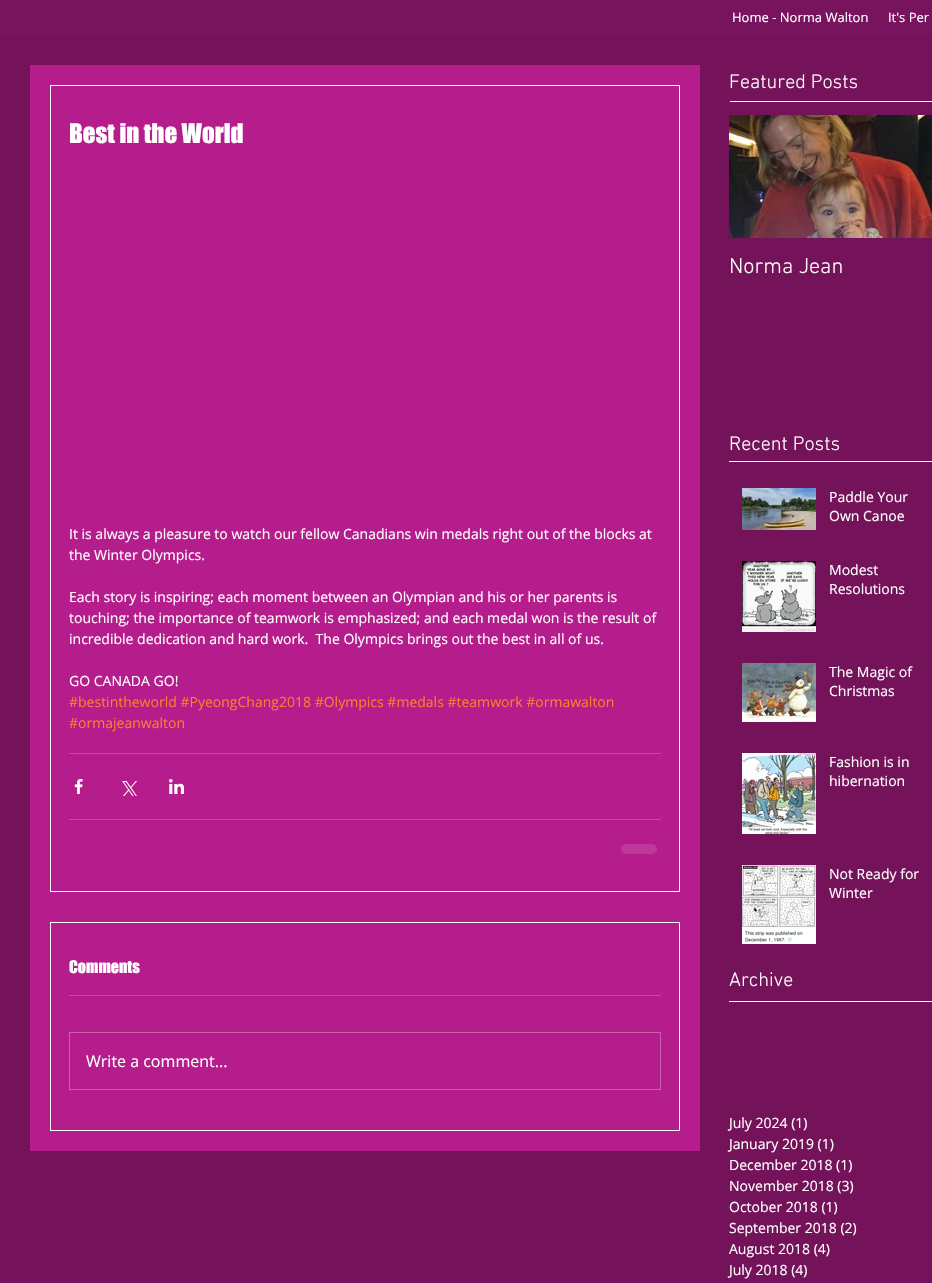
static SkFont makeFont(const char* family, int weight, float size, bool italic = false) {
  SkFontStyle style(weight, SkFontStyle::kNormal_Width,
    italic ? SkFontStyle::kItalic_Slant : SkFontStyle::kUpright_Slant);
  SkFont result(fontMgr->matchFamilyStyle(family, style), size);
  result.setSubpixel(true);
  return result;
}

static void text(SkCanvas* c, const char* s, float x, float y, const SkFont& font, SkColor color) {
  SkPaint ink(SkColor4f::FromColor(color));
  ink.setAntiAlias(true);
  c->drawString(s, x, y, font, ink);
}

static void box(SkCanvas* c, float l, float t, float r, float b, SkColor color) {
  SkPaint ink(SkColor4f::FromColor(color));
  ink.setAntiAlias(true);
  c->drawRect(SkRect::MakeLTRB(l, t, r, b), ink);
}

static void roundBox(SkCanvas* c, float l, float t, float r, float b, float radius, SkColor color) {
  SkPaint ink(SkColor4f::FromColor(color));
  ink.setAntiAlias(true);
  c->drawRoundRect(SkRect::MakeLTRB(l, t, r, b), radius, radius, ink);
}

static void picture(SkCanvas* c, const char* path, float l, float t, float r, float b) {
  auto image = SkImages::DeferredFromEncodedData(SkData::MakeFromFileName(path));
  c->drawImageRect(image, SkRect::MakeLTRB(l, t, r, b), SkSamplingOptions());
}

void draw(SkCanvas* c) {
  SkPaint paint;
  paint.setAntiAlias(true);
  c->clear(0xff78135d);
  SkFont face1 = makeFont("Open Sans", 400, 13);
  text(c, "Home - Norma Walton", 732, 22, face1, 0xffffffff);
  text(c, "It's Per", 888, 22, face1, 0xffffffff);
  box(c, 0, 35, 932, 1283, 0xff74125a);
  SkFont face2 = makeFont("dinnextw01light", 300, 20);
  text(c, "Featured Posts", 729, 88, face2, 0xffffffff);
  box(c, 730, 101, 932, 102, 0xffffffff);
  box(c, 30, 65, 700, 1151, 0xffb51c8c);
  paint.setStyle(SkPaint::kStroke_Style);
  paint.setStrokeWidth(1);
  paint.setColor(0xffffffff);
  c->drawRect(SkRect::MakeLTRB(50.5f, 85.5f, 679.5f, 891.5f), paint);
  SkFont face3 = makeFont("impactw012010", 400, 25);
  text(c, "Best in the World", 69, 143, face3, 0xffffffff);
  SkFont face4 = makeFont("Open Sans", 400, 14);
  text(c, "It is always a pleasure to watch our fellow Canadians win medals right out of the blocks at", 69, 539, face4, 0xffffffff);
  text(c, "the Winter Olympics.", 69, 560, face4, 0xffffffff);
  text(c, "Each story is inspiring; each moment between an Olympian and his or her parents is", 69, 602, face4, 0xffffffff);
  text(c, "touching; the importance of teamwork is emphasized; and each medal won is the result of", 69, 623, face4, 0xffffffff);
  text(c, "incredible dedication and hard work.  The Olympics brings out the best in all of us.", 69, 644, face4, 0xffffffff);
  text(c, "GO CANADA GO!", 69, 686, face4, 0xffffffff);
  text(c, "#bestintheworld #PyeongChang2018 #Olympics #medals #teamwork #ormawalton", 69, 707, face4, 0xffff7e2d);
  text(c, "#ormajeanwalton", 69, 728, face4, 0xffff7e2d);
  box(c, 69, 753, 661, 754, 0xffc449a3);
  picture(c, "img_01.png", 74, 779, 83, 794);
  picture(c, "img_02.png", 122, 781, 137, 796);
  picture(c, "img_03.png", 169, 779, 184, 794);
  box(c, 69, 819, 661, 820, 0xffc449a3);
  roundBox(c, 621, 844, 657, 854, 5, 0xffbe379a);
  c->drawRect(SkRect::MakeLTRB(50.5f, 922.5f, 679.5f, 1130.5f), paint);
  SkFont face5 = makeFont("impactw012010", 400, 16);
  text(c, "Comments", 69, 973, face5, 0xffffffff);
  box(c, 69, 995, 661, 996, 0xffc449a3);
  paint.setColor(0xffcb60af);
  c->drawRect(SkRect::MakeLTRB(69.5f, 1032.5f, 660.5f, 1089.5f), paint);
  SkFont face6 = makeFont("Open Sans", 400, 16);
  text(c, "Write a comment...", 86, 1067, face6, 0xffffffff);
  picture(c, "img_04.png", 729, 115, 932, 238);
  SkFont face7 = makeFont("dinnextw01light", 300, 22);
  text(c, "Norma Jean", 729, 273, face7, 0xffffffff);
  text(c, "Recent Posts", 729, 450, face2, 0xffffffff);
  box(c, 729, 461, 932, 462, 0xffffffff);
  picture(c, "img_05.png", 742, 488, 816, 530);
  text(c, "Paddle Your", 829, 502, face4, 0xffffffff);
  text(c, "Own Canoe", 829, 521, face4, 0xffffffff);
  picture(c, "img_06.png", 742, 561, 816, 632);
  text(c, "Modest", 829, 575, face4, 0xffffffff);
  text(c, "Resolutions", 829, 594, face4, 0xffffffff);
  picture(c, "img_07.png", 742, 663, 816, 722);
  text(c, "The Magic of", 829, 677, face4, 0xffffffff);
  text(c, "Christmas", 829, 696, face4, 0xffffffff);
  picture(c, "img_08.png", 742, 753, 816, 834);
  text(c, "Fashion is in", 829, 767, face4, 0xffffffff);
  text(c, "hibernation", 829, 786, face4, 0xffffffff);
  picture(c, "img_09.png", 742, 865, 816, 944);
  text(c, "Not Ready for", 829, 879, face4, 0xffffffff);
  text(c, "Winter", 829, 898, face4, 0xffffffff);
  text(c, "Archive", 729, 986, face2, 0xffffffff);
  box(c, 729, 1001, 932, 1002, 0xffffffff);
  text(c, "July 2024 (1)", 729, 1128, face4, 0xffffffff);
  text(c, "January 2019 (1)", 729, 1149, face4, 0xffffffff);
  text(c, "December 2018 (1)", 729, 1170, face4, 0xffffffff);
  text(c, "November 2018 (3)", 729, 1191, face4, 0xffffffff);
  text(c, "October 2018 (1)", 729, 1212, face4, 0xffffffff);
  text(c, "September 2018 (2)", 729, 1233, face4, 0xffffffff);
  text(c, "August 2018 (4)", 729, 1254, face4, 0xffffffff);
  text(c, "July 2018 (4)", 729, 1275, face4, 0xffffffff);
}
